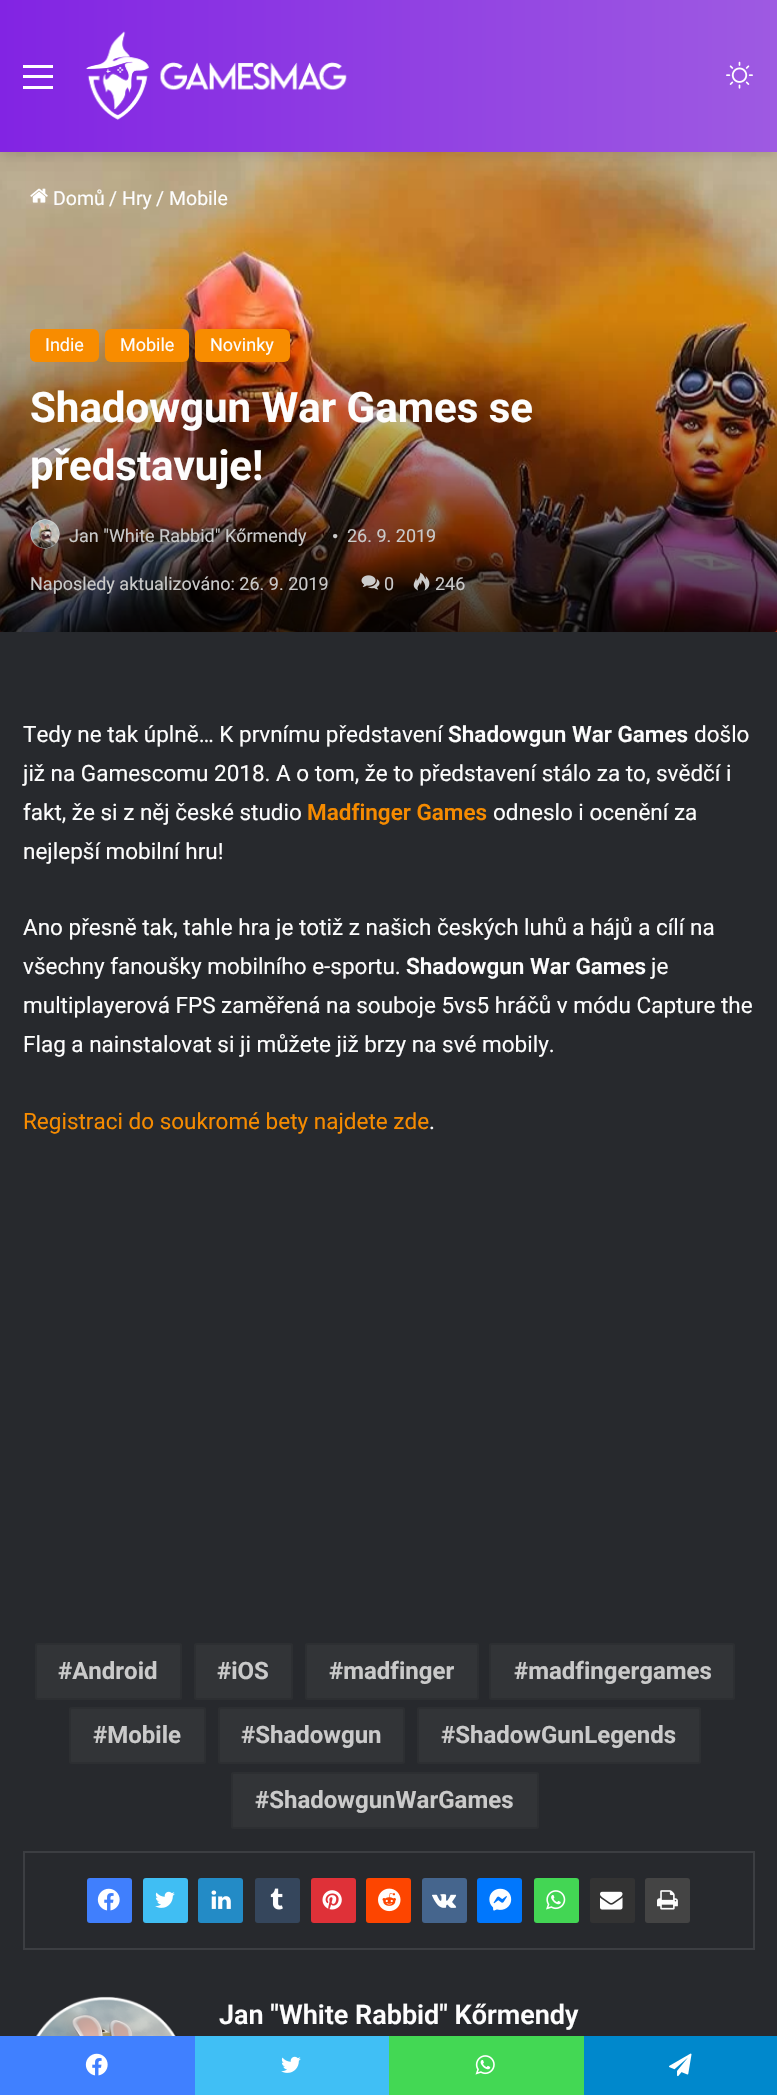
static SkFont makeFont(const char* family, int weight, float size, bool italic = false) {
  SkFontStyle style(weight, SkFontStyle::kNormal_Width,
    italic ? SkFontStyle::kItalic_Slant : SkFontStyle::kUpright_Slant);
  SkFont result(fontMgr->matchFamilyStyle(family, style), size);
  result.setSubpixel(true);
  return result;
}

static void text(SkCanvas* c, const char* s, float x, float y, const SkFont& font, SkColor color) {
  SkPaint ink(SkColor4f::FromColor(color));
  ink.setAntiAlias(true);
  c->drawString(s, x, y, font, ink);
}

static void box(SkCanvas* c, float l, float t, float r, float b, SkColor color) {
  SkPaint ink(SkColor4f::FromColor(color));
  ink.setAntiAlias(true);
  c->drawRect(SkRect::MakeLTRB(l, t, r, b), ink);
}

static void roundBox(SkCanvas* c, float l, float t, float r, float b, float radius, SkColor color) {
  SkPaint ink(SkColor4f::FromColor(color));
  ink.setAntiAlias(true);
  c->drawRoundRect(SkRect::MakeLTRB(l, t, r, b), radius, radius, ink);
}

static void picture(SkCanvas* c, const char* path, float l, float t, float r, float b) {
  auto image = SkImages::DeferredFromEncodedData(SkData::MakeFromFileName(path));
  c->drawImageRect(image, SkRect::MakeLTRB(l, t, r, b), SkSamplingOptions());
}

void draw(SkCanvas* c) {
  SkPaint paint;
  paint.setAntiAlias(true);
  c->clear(0xff27292d);
  picture(c, "img_03.png", 0, 152, 777, 632);
  paint.setColor(0x1a000000);
  paint.setMaskFilter(SkMaskFilter::MakeBlur(kNormal_SkBlurStyle, 5));
  c->drawRect(SkRect::MakeLTRB(0, 5, 777, 156), paint);
  paint.setMaskFilter(nullptr);
  {
    const SkColor colors[] = {0xff8224e3, 0xff9e5ae2};
    const float stops[] = {0, 1};
    const SkPoint ends[] = {{0, 76}, {777, 76}};
    paint.setShader(SkGradientShader::MakeLinear(ends, colors, stops, 2, SkTileMode::kClamp));
    paint.setAlpha(255);
  }
  c->drawRect(SkRect::MakeLTRB(0, 0, 777, 152), paint);
  box(c, 23, 75, 53, 78, 0xffffffff);
  box(c, 23, 65, 53, 68, 0xffffffff);
  box(c, 23, 86, 53, 89, 0xffffffff);
  picture(c, "img_01.png", 85, 31, 347, 120);
  picture(c, "img_02.png", 726, 61, 753, 89);
  picture(c, "img_04.png", 30, 188, 48, 203);
  SkFont face1 = makeFont("Roboto", 400, 19.5f);
  text(c, "Domů", 53, 205, face1, 0xfffdfdfd);
  text(c, "/", 109, 205, face1, 0xfffdfdfd);
  text(c, "Hry", 122, 205, face1, 0xfffdfdfd);
  text(c, "/", 156, 205, face1, 0xfffdfdfd);
  text(c, "Mobile", 169, 205, face1, 0xfffdfdfd);
  roundBox(c, 30, 329, 99, 362, 6, 0xfff88c00);
  SkFont face2 = makeFont("Roboto", 400, 18);
  text(c, "Indie", 45, 351, face2, 0xfffdfdfd);
  roundBox(c, 105, 329, 189, 362, 6, 0xfff88c00);
  text(c, "Mobile", 120, 351, face2, 0xfffdfdfd);
  roundBox(c, 195, 329, 290, 362, 6, 0xfff88c00);
  text(c, "Novinky", 210, 351, face2, 0xfffdfdfd);
  SkFont face3 = makeFont("Roboto", 700, 42);
  text(c, "Shadowgun War Games se", 30, 422, face3, 0xfffdfdfd);
  text(c, "představuje!", 30, 480, face3, 0xfffdfdfd);
  picture(c, "img_05.png", 30, 519, 60, 549);
  text(c, "Jan \"White Rabbid\" Kőrmendy", 69, 542, face2, 0xffcacaca);
  SkFont face4 = makeFont("Liberation Serif", 400, 18);
  text(c, "•", 332, 542, face4, 0xffcacaca);
  text(c, "26. 9. 2019", 347, 542, face2, 0xffcacaca);
  text(c, "Naposledy aktualizováno: 26. 9. 2019", 30, 590, face2, 0xffcacaca);
  picture(c, "img_06.png", 361, 575, 380, 590);
  text(c, "0", 384, 590, face2, 0xffcacaca);
  picture(c, "img_07.png", 413, 572, 430, 591);
  text(c, "246", 435, 590, face2, 0xffcacaca);
  SkFont face5 = makeFont("Roboto", 400, 22.5f);
  text(c, "Tedy ne tak úplně… K prvnímu představení", 23, 742, face5, 0xfffdfdfd);
  SkFont face6 = makeFont("Roboto", 600, 22.5f);
  text(c, "Shadowgun War Games", 448, 742, face6, 0xfffdfdfd);
  text(c, "došlo", 694, 742, face5, 0xfffdfdfd);
  text(c, "již na Gamescomu 2018. A o tom, že to představení stálo za to, svědčí i", 23, 781, face5, 0xfffdfdfd);
  text(c, "fakt, že si z něj české studio", 23, 820, face5, 0xfffdfdfd);
  text(c, "Madfinger Games", 307, 820, face6, 0xfff68b00);
  text(c, "odneslo i ocenění za", 493, 820, face5, 0xfffdfdfd);
  text(c, "nejlepší mobilní hru!", 23, 859, face5, 0xfffdfdfd);
  text(c, "Ano přesně tak, tahle hra je totiž z našich českých luhů a hájů a cílí na", 23, 935, face5, 0xfffdfdfd);
  text(c, "všechny fanoušky mobilního e-sportu.", 23, 974, face5, 0xfffdfdfd);
  text(c, "Shadowgun War Games", 406, 974, face6, 0xfffdfdfd);
  text(c, "je", 651, 974, face5, 0xfffdfdfd);
  text(c, "multiplayerová FPS zaměřená na souboje 5vs5 hráčů v módu Capture the", 23, 1013, face5, 0xfffdfdfd);
  text(c, "Flag a nainstalovat si ji můžete již brzy na své mobily.", 23, 1052, face5, 0xfffdfdfd);
  text(c, "Registraci do soukromé bety najdete zde", 23, 1129, face5, 0xfff68b00);
  text(c, ".", 429, 1129, face5, 0xfffdfdfd);
  roundBox(c, 35, 1643, 182, 1700, 3, 0xff323437);
  paint.setStyle(SkPaint::kStroke_Style);
  paint.setStrokeWidth(2);
  paint.setShader(nullptr);
  paint.setColor(0x1a000000);
  c->drawRoundRect(SkRect::MakeLTRB(36, 1644, 181, 1699), 2, 2, paint);
  SkFont face7 = makeFont("Roboto", 700, 24);
  text(c, "#Android", 58, 1679, face7, 0xffcacaca);
  roundBox(c, 194, 1643, 293, 1700, 3, 0xff323437);
  c->drawRoundRect(SkRect::MakeLTRB(195, 1644, 292, 1699), 2, 2, paint);
  text(c, "#iOS", 217, 1679, face7, 0xffcacaca);
  roundBox(c, 305, 1643, 479, 1700, 3, 0xff323437);
  c->drawRoundRect(SkRect::MakeLTRB(306, 1644, 478, 1699), 2, 2, paint);
  text(c, "#madfinger", 329, 1679, face7, 0xffcacaca);
  roundBox(c, 489, 1643, 735, 1700, 3, 0xff323437);
  c->drawRoundRect(SkRect::MakeLTRB(490, 1644, 734, 1699), 2, 2, paint);
  text(c, "#madfingergames", 514, 1679, face7, 0xffcacaca);
  roundBox(c, 69, 1707, 206, 1764, 3, 0xff323437);
  c->drawRoundRect(SkRect::MakeLTRB(70, 1708, 205, 1763), 2, 2, paint);
  text(c, "#Mobile", 93, 1743, face7, 0xffcacaca);
  roundBox(c, 218, 1707, 405, 1764, 3, 0xff323437);
  c->drawRoundRect(SkRect::MakeLTRB(219, 1708, 404, 1763), 2, 2, paint);
  text(c, "#Shadowgun", 241, 1743, face7, 0xffcacaca);
  roundBox(c, 417, 1707, 701, 1764, 3, 0xff323437);
  c->drawRoundRect(SkRect::MakeLTRB(418, 1708, 700, 1763), 2, 2, paint);
  text(c, "#ShadowGunLegends", 441, 1743, face7, 0xffcacaca);
  roundBox(c, 231, 1772, 539, 1829, 3, 0xff323437);
  c->drawRoundRect(SkRect::MakeLTRB(232, 1773, 538, 1828), 2, 2, paint);
  text(c, "#ShadowgunWarGames", 255, 1808, face7, 0xffcacaca);
  paint.setColor(0xff3c3e42);
  c->drawRect(SkRect::MakeLTRB(24, 1852, 754, 1949), paint);
  roundBox(c, 87, 1878, 132, 1923, 3, 0xff407ffd);
  picture(c, "img_08.png", 97, 1888, 120, 1911);
  roundBox(c, 143, 1878, 188, 1923, 3, 0xff40bef3);
  picture(c, "img_09.png", 155, 1891, 175, 1908);
  roundBox(c, 198, 1878, 243, 1923, 3, 0xff238bc6);
  picture(c, "img_10.png", 211, 1890, 231, 1909);
  roundBox(c, 255, 1878, 300, 1923, 3, 0xff35465c);
  picture(c, "img_11.png", 270, 1888, 283, 1910);
  roundBox(c, 311, 1878, 356, 1923, 3, 0xffdf3138);
  picture(c, "img_12.png", 322, 1890, 342, 1910);
  roundBox(c, 366, 1878, 411, 1923, 3, 0xfffd4500);
  picture(c, "img_13.png", 378, 1888, 401, 1912);
  roundBox(c, 422, 1878, 467, 1923, 3, 0xff45658d);
  picture(c, "img_14.png", 432, 1894, 457, 1908);
  roundBox(c, 477, 1878, 522, 1923, 3, 0xff0077fd);
  picture(c, "img_15.png", 489, 1888, 512, 1911);
  roundBox(c, 534, 1878, 579, 1923, 3, 0xff43d654);
  picture(c, "img_16.png", 546, 1890, 566, 1910);
  roundBox(c, 590, 1878, 635, 1923, 3, 0xff333333);
  picture(c, "img_17.png", 600, 1891, 623, 1910);
  roundBox(c, 645, 1878, 690, 1923, 3, 0xff444444);
  picture(c, "img_18.png", 657, 1890, 678, 1910);
  picture(c, "img_19.png", 36, 1996, 177, 2036);
  SkFont face8 = makeFont("Roboto", 600, 27);
  text(c, "Jan \"White Rabbid\" Kőrmendy", 219, 2024, face8, 0xfffdfdfd);
  box(c, 0, 2036, 195, 2095, 0xff4080ff);
  picture(c, "img_20.png", 85, 2053, 108, 2076);
  box(c, 195, 2036, 389, 2095, 0xff40bff5);
  picture(c, "img_21.png", 281, 2056, 301, 2073);
  box(c, 389, 2036, 584, 2095, 0xff43d854);
  picture(c, "img_22.png", 475, 2055, 495, 2075);
  box(c, 584, 2036, 777, 2095, 0xff0088cc);
  picture(c, "img_23.png", 669, 2053, 692, 2077);
}
